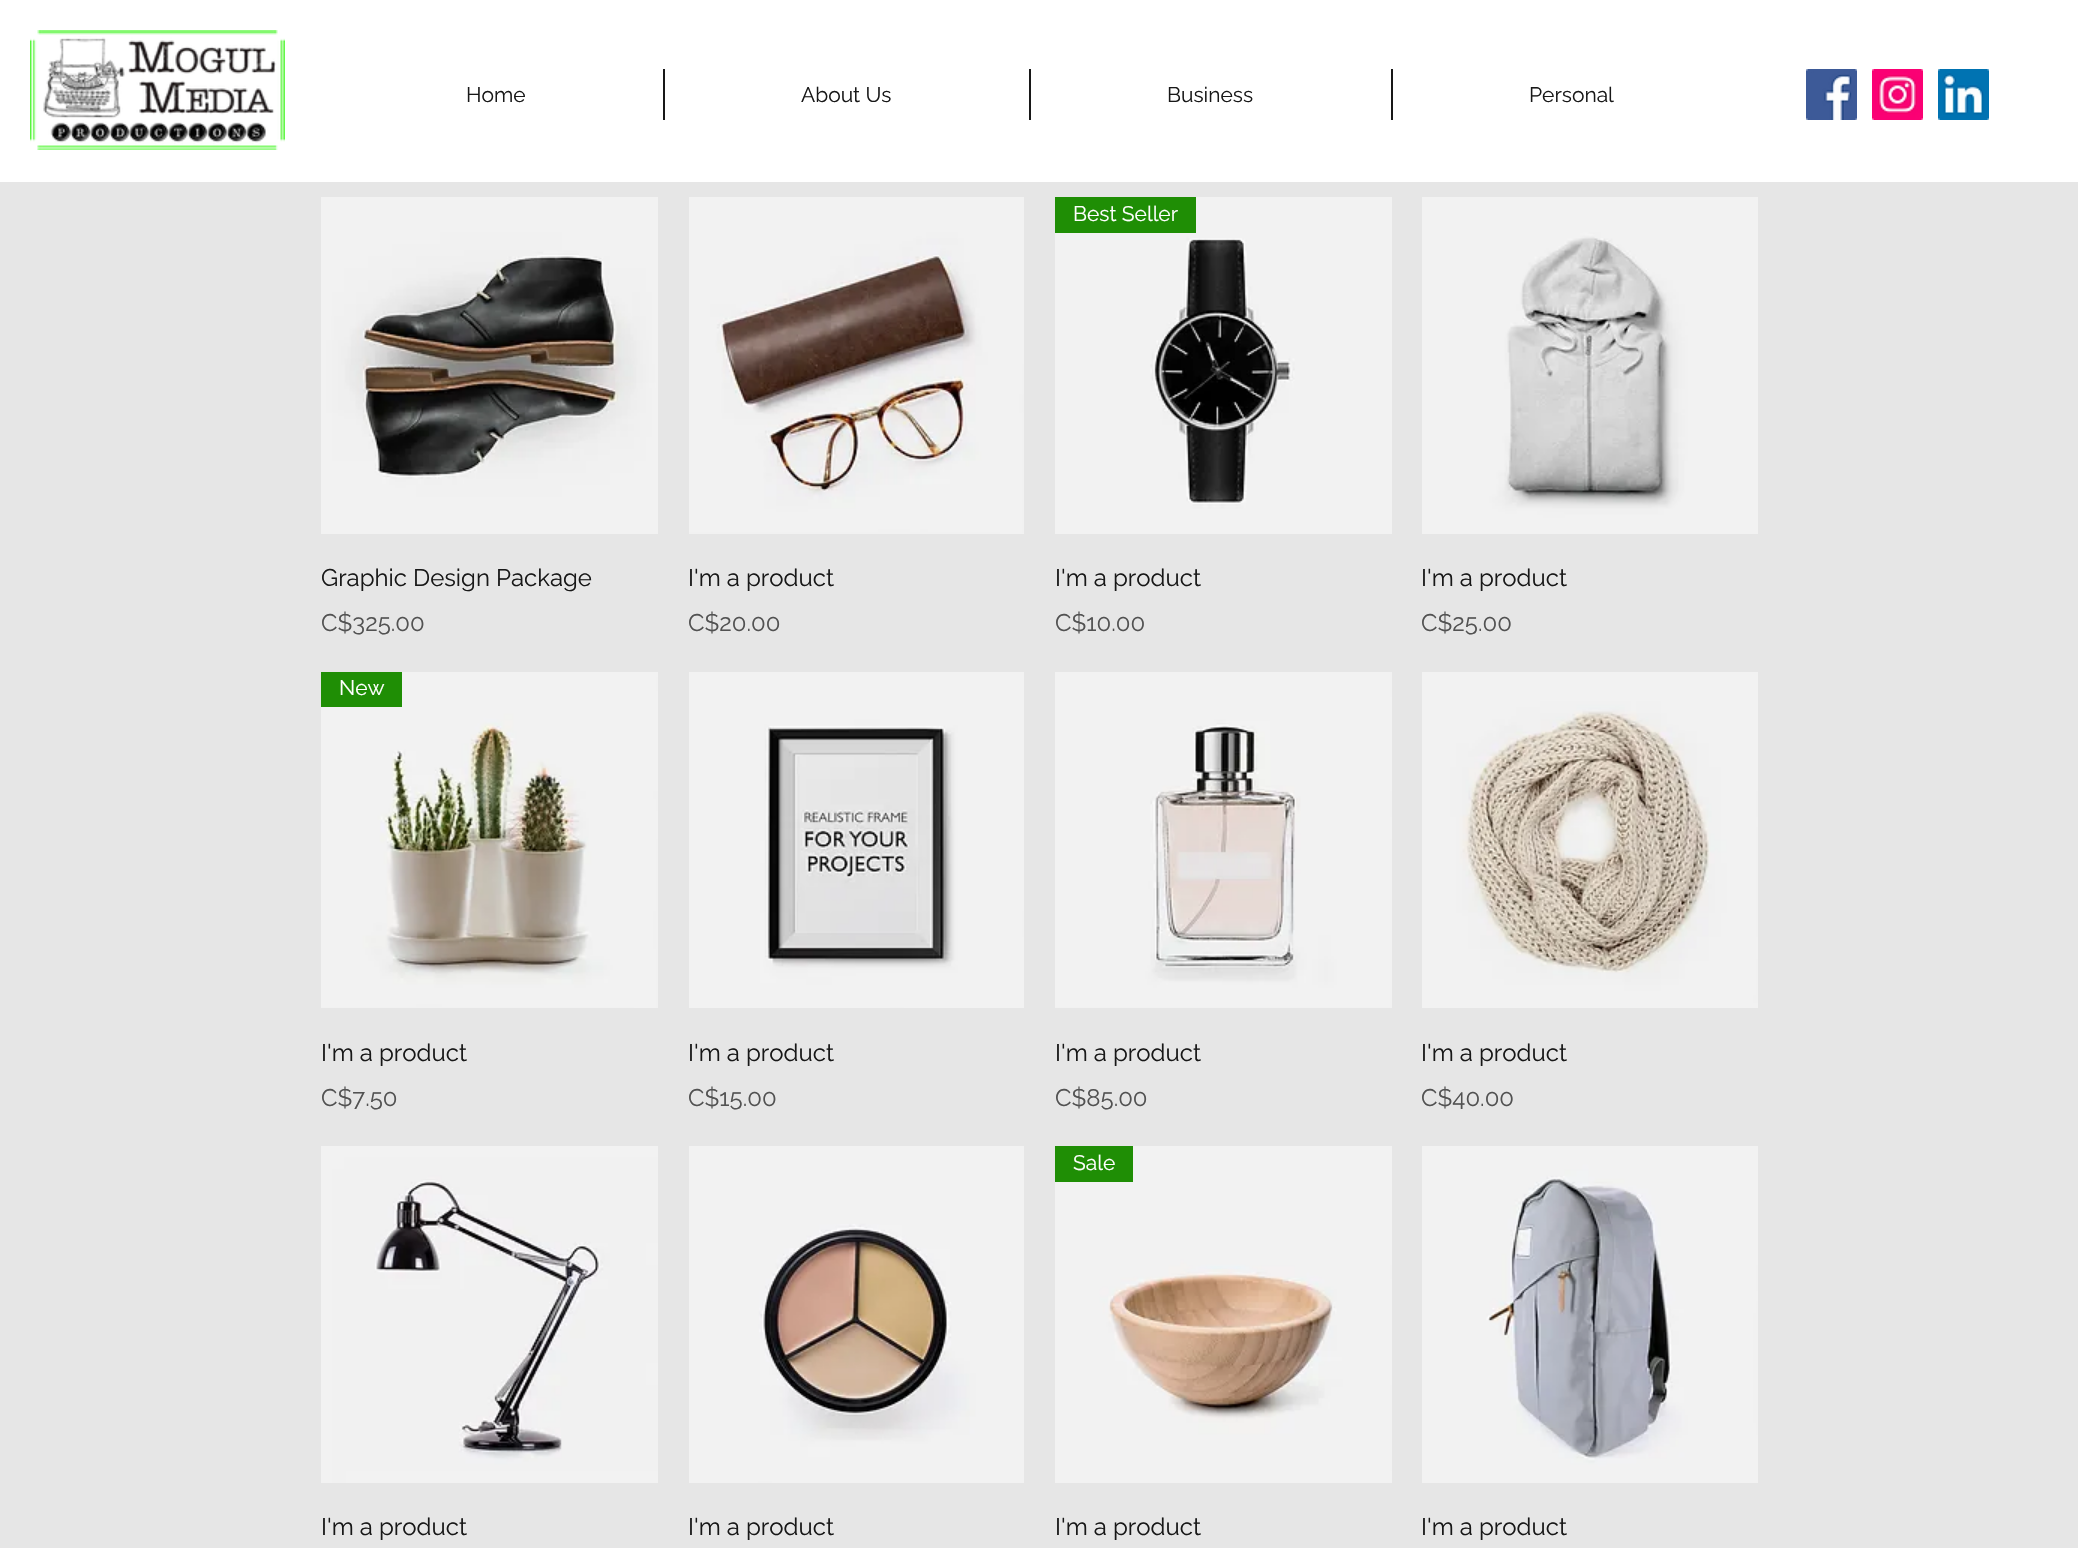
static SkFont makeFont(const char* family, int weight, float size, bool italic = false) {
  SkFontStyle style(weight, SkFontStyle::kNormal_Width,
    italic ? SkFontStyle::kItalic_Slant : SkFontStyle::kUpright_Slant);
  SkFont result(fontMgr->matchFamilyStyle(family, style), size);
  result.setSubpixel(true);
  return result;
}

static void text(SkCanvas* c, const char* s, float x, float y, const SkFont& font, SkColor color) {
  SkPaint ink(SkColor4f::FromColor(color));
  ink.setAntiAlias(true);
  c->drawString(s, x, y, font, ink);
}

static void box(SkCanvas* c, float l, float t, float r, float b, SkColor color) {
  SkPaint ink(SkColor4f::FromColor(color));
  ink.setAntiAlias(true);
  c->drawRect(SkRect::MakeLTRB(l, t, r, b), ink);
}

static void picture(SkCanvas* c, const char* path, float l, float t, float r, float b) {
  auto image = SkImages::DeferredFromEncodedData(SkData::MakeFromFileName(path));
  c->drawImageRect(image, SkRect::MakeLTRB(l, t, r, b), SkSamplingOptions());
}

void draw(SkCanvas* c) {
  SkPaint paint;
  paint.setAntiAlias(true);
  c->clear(0xffe6e6e6);
  box(c, 0, 0, 2078, 182, 0xffffffff);
  picture(c, "img_01.png", 30, 30, 285, 150);
  SkFont face1 = makeFont("Raleway", 400, 21);
  text(c, "Home", 466, 102, face1, 0xff181818);
  box(c, 663, 69, 665, 120, 0xff181818);
  text(c, "About Us", 801, 102, face1, 0xff181818);
  box(c, 1029, 69, 1031, 120, 0xff181818);
  text(c, "Business", 1167, 102, face1, 0xff181818);
  box(c, 1391, 69, 1393, 120, 0xff181818);
  text(c, "Personal", 1529, 102, face1, 0xff181818);
  picture(c, "img_02.png", 1806, 69, 1857, 120);
  picture(c, "img_03.png", 1872, 69, 1923, 120);
  picture(c, "img_04.png", 1938, 69, 1989, 120);
  picture(c, "img_05.png", 321, 197, 658, 534);
  SkFont face2 = makeFont("Raleway", 400, 24);
  text(c, "Graphic Design Package", 321, 586, face2, 0xff181818);
  text(c, "C$325.00", 321, 631, face2, 0xff525252);
  picture(c, "img_06.png", 689, 197, 1024, 534);
  text(c, "I'm a product", 688, 586, face2, 0xff181818);
  text(c, "C$20.00", 688, 631, face2, 0xff525252);
  picture(c, "img_07.png", 1055, 197, 1392, 534);
  box(c, 1055, 197, 1196, 233, 0xff1f8e05);
  text(c, "Best Seller", 1073, 221, face1, 0xffffffff);
  text(c, "I'm a product", 1055, 586, face2, 0xff181818);
  text(c, "C$10.00", 1055, 631, face2, 0xff525252);
  picture(c, "img_08.png", 1422, 197, 1758, 534);
  text(c, "I'm a product", 1421, 586, face2, 0xff181818);
  text(c, "C$25.00", 1421, 631, face2, 0xff525252);
  picture(c, "img_09.png", 321, 672, 658, 1008);
  box(c, 321, 672, 402, 707, 0xff1f8e05);
  text(c, "New", 339, 695, face1, 0xffffffff);
  text(c, "I'm a product", 321, 1061, face2, 0xff181818);
  text(c, "C$7.50", 321, 1106, face2, 0xff525252);
  picture(c, "img_10.png", 689, 672, 1024, 1008);
  text(c, "I'm a product", 688, 1061, face2, 0xff181818);
  text(c, "C$15.00", 688, 1106, face2, 0xff525252);
  picture(c, "img_11.png", 1055, 672, 1392, 1008);
  text(c, "I'm a product", 1055, 1061, face2, 0xff181818);
  text(c, "C$85.00", 1055, 1106, face2, 0xff525252);
  picture(c, "img_12.png", 1422, 672, 1758, 1008);
  text(c, "I'm a product", 1421, 1061, face2, 0xff181818);
  text(c, "C$40.00", 1421, 1106, face2, 0xff525252);
  picture(c, "img_13.png", 321, 1146, 658, 1483);
  text(c, "I'm a product", 321, 1535, face2, 0xff181818);
  picture(c, "img_14.png", 689, 1146, 1024, 1483);
  text(c, "I'm a product", 688, 1535, face2, 0xff181818);
  picture(c, "img_15.png", 1055, 1146, 1392, 1483);
  box(c, 1055, 1146, 1133, 1182, 0xff1f8e05);
  text(c, "Sale", 1073, 1170, face1, 0xffffffff);
  text(c, "I'm a product", 1055, 1535, face2, 0xff181818);
  picture(c, "img_16.png", 1422, 1146, 1758, 1483);
  text(c, "I'm a product", 1421, 1535, face2, 0xff181818);
}
